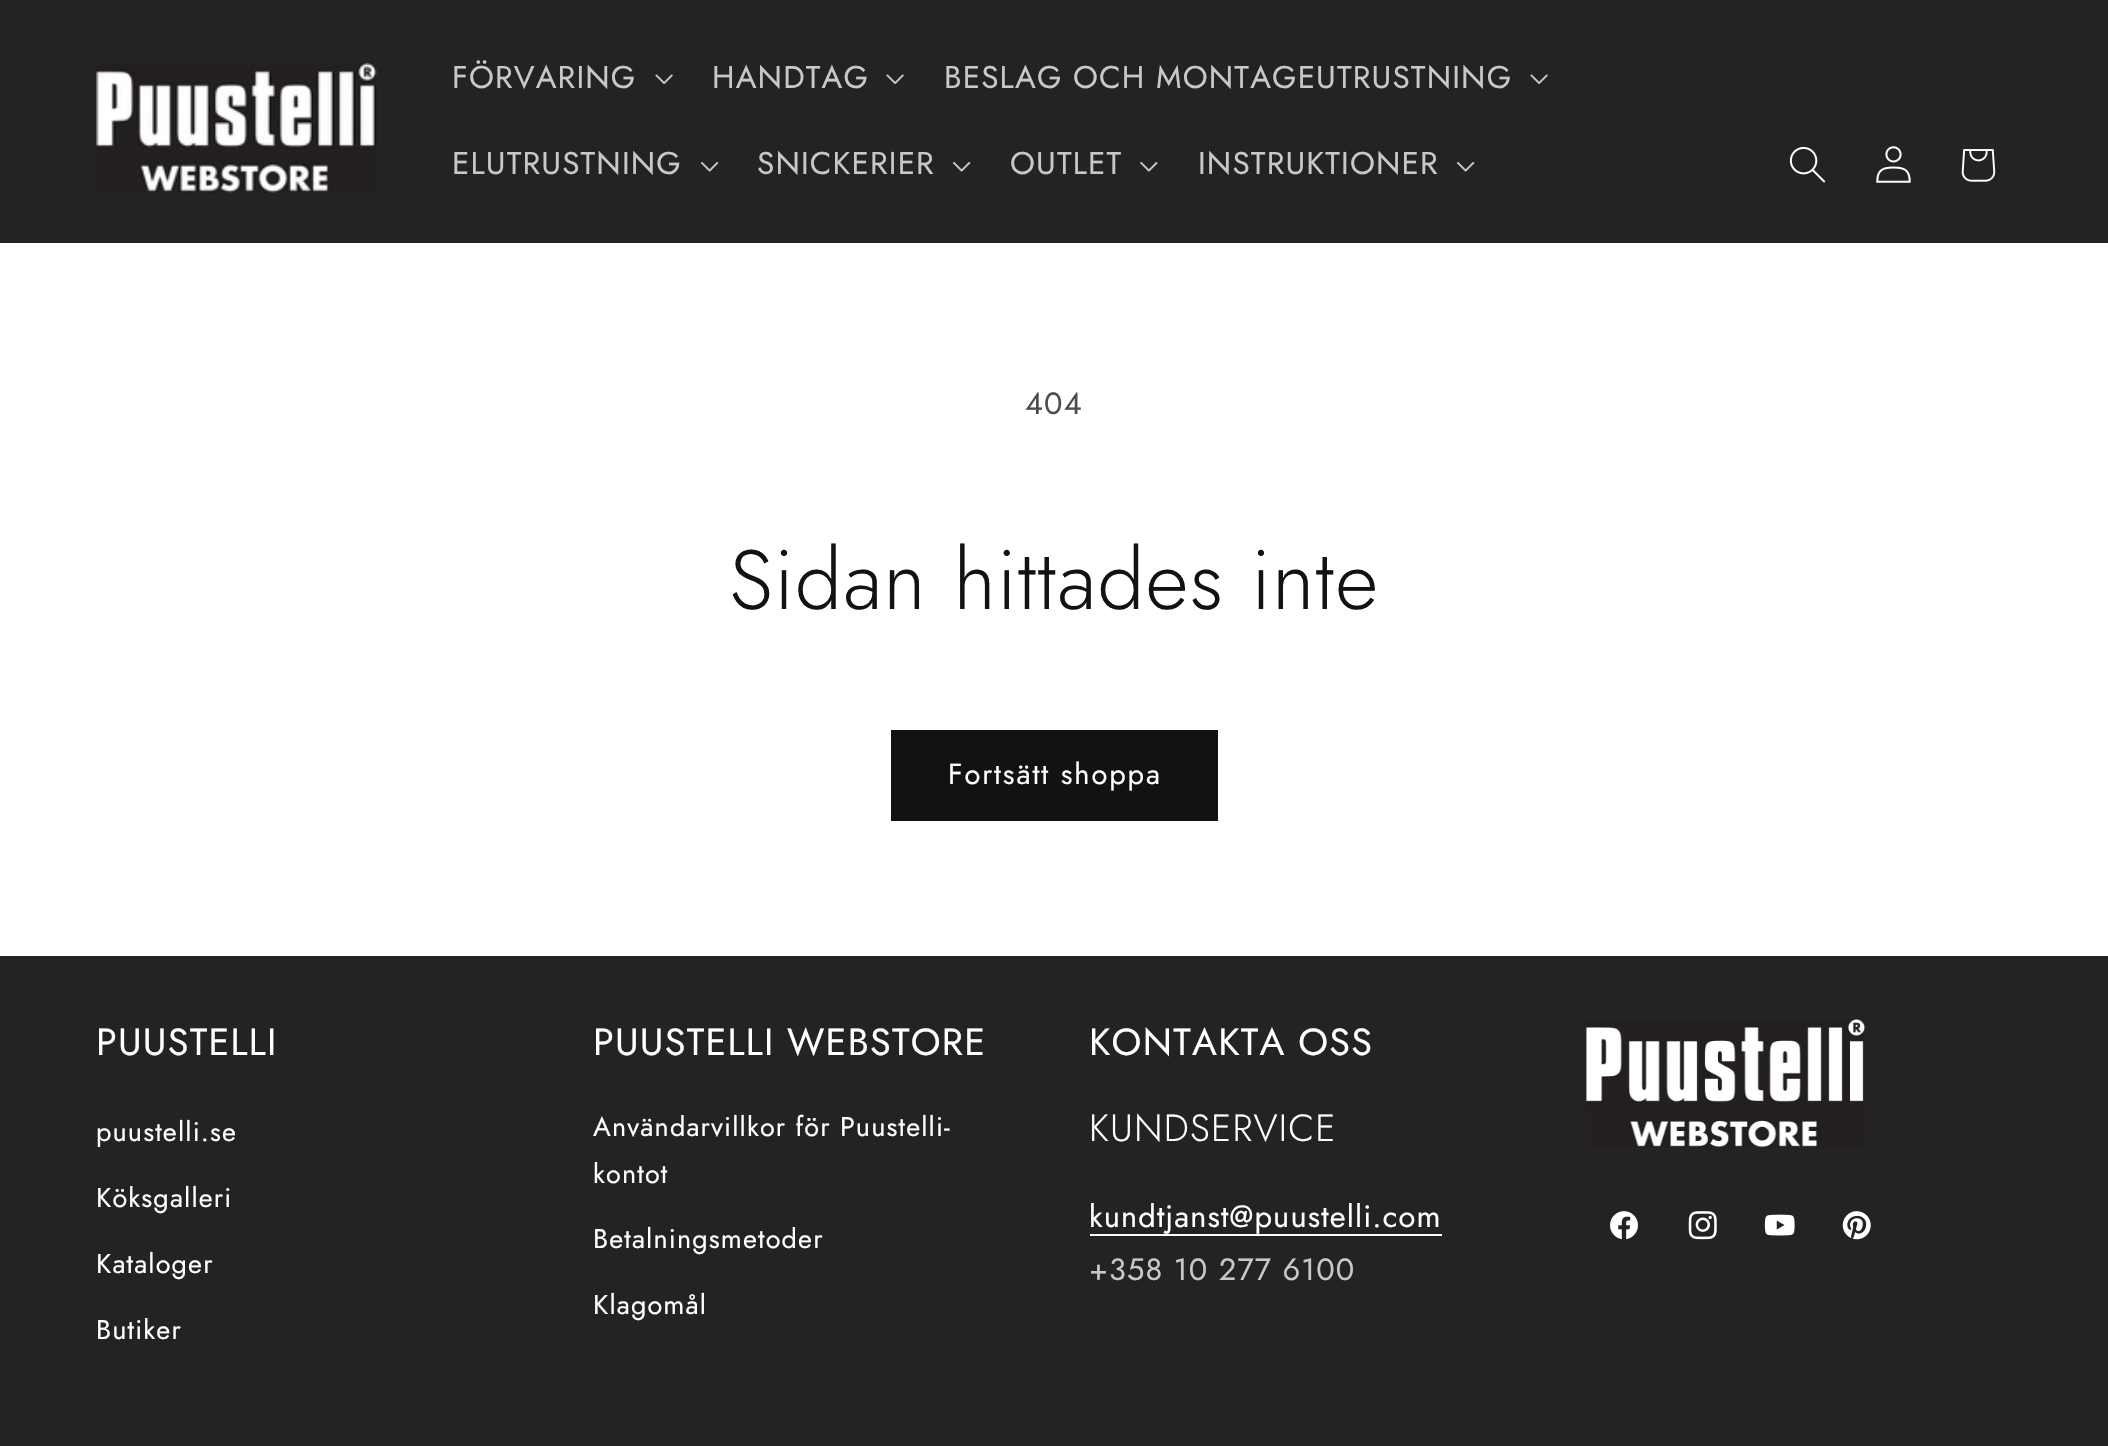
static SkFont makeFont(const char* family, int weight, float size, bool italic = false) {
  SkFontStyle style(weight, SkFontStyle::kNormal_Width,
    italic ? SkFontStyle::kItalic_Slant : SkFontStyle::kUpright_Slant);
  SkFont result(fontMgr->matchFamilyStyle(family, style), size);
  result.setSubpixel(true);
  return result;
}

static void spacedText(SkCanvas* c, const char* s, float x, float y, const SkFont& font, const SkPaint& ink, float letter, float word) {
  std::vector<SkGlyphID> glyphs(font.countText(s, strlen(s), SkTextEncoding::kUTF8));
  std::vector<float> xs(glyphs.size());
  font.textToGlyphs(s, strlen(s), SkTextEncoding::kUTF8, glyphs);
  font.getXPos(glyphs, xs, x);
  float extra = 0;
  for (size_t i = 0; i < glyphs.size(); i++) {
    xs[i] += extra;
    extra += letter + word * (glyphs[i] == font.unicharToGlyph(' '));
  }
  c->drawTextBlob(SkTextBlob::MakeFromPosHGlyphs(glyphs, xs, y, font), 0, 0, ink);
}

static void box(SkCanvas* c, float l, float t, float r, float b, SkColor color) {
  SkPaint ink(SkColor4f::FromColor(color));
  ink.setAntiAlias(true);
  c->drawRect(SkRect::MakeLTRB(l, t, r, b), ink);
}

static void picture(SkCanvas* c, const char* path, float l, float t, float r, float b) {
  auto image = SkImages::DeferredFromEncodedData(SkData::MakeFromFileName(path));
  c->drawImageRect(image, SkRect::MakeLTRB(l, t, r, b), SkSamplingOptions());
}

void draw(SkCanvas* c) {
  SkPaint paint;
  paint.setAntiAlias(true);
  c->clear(0xffffffff);
  box(c, 0, 0, 2108, 243, 0xff242323);
  picture(c, "img_01.png", 96, 63, 377, 193);
  SkFont face1 = makeFont("Jost", 400, 31.5f);
  paint.setColor(0xffc8c8c8);
  spacedText(c, "FÖRVARING", 452, 88, face1, paint, 1.15f, 0);
  picture(c, "img_02.png", 655, 74, 673, 84);
  spacedText(c, "HANDTAG", 712, 88, face1, paint, 1.15f, 0);
  picture(c, "img_02.png", 886, 74, 904, 84);
  spacedText(c, "BESLAG OCH MONTAGEUTRUSTNING", 944, 88, face1, paint, 1.15f, 0);
  picture(c, "img_02.png", 1530, 74, 1548, 84);
  spacedText(c, "ELUTRUSTNING", 452, 174, face1, paint, 1.15f, 0);
  picture(c, "img_03.png", 701, 162, 719, 172);
  spacedText(c, "SNICKERIER", 757, 174, face1, paint, 1.15f, 0);
  picture(c, "img_03.png", 953, 162, 971, 172);
  spacedText(c, "OUTLET", 1010, 174, face1, paint, 1.15f, 0);
  picture(c, "img_04.png", 1140, 162, 1158, 172);
  spacedText(c, "INSTRUKTIONER", 1198, 174, face1, paint, 1.15f, 0);
  picture(c, "img_03.png", 1457, 162, 1475, 172);
  picture(c, "img_05.png", 1789, 146, 1826, 183);
  picture(c, "img_06.png", 1876, 146, 1911, 183);
  picture(c, "img_07.png", 1961, 149, 1996, 182);
  SkFont face2 = makeFont("Jost", 400, 30.75f);
  paint.setColor(0xff4d4d4d);
  spacedText(c, "404", 1025, 414, face2, paint, 1.15f, 0);
  SkFont face3 = makeFont("Jost", 300, 84);
  paint.setColor(0xff121212);
  spacedText(c, "Sidan hittades inte", 729, 609, face3, paint, 1.25f, 0);
  box(c, 891, 730, 1218, 821, 0xff121212);
  SkFont face4 = makeFont("Jost", 400, 29);
  paint.setColor(0xffffffff);
  spacedText(c, "Fortsätt shoppa", 948, 784, face4, paint, 1.9f, 0);
  box(c, 0, 956, 2108, 1446, 0xff242323);
  SkFont face5 = makeFont("Jost", 400, 37.75f);
  spacedText(c, "PUUSTELLI", 96, 1055, face5, paint, 1.25f, 0);
  SkFont face6 = makeFont("Jost", 400, 27);
  spacedText(c, "puustelli.se", 96, 1141, face6, paint, 1.15f, 0);
  spacedText(c, "Köksgalleri", 96, 1207, face6, paint, 1.15f, 0);
  spacedText(c, "Kataloger", 96, 1273, face6, paint, 1.15f, 0);
  spacedText(c, "Butiker", 96, 1339, face6, paint, 1.15f, 0);
  spacedText(c, "PUUSTELLI WEBSTORE", 593, 1055, face5, paint, 1.25f, 0);
  spacedText(c, "Användarvillkor för Puustelli-", 593, 1136, face6, paint, 1.15f, 0);
  spacedText(c, "kontot", 593, 1183, face6, paint, 1.15f, 0);
  spacedText(c, "Betalningsmetoder", 593, 1248, face6, paint, 1.15f, 0);
  spacedText(c, "Klagomål", 593, 1314, face6, paint, 1.15f, 0);
  spacedText(c, "KONTAKTA OSS", 1089, 1055, face5, paint, 1.25f, 0);
  SkFont face7 = makeFont("Jost", 300, 37.75f);
  spacedText(c, "KUNDSERVICE", 1089, 1141, face7, paint, 1.25f, 0);
  spacedText(c, "kundtjanst@puustelli.com", 1089, 1227, face2, paint, 1.15f, 0);
  box(c, 1090, 1234, 1442, 1236, 0xffffffff);
  paint.setColor(0xffc8c8c8);
  spacedText(c, "+358 10 277 6100", 1089, 1280, face2, paint, 1.15f, 0);
  picture(c, "img_08.png", 1586, 1019, 1866, 1148);
  picture(c, "img_09.png", 1610, 1211, 1638, 1240);
  picture(c, "img_10.png", 1688, 1211, 1717, 1240);
  picture(c, "img_11.png", 1764, 1214, 1795, 1236);
  picture(c, "img_12.png", 1842, 1211, 1871, 1240);
}
